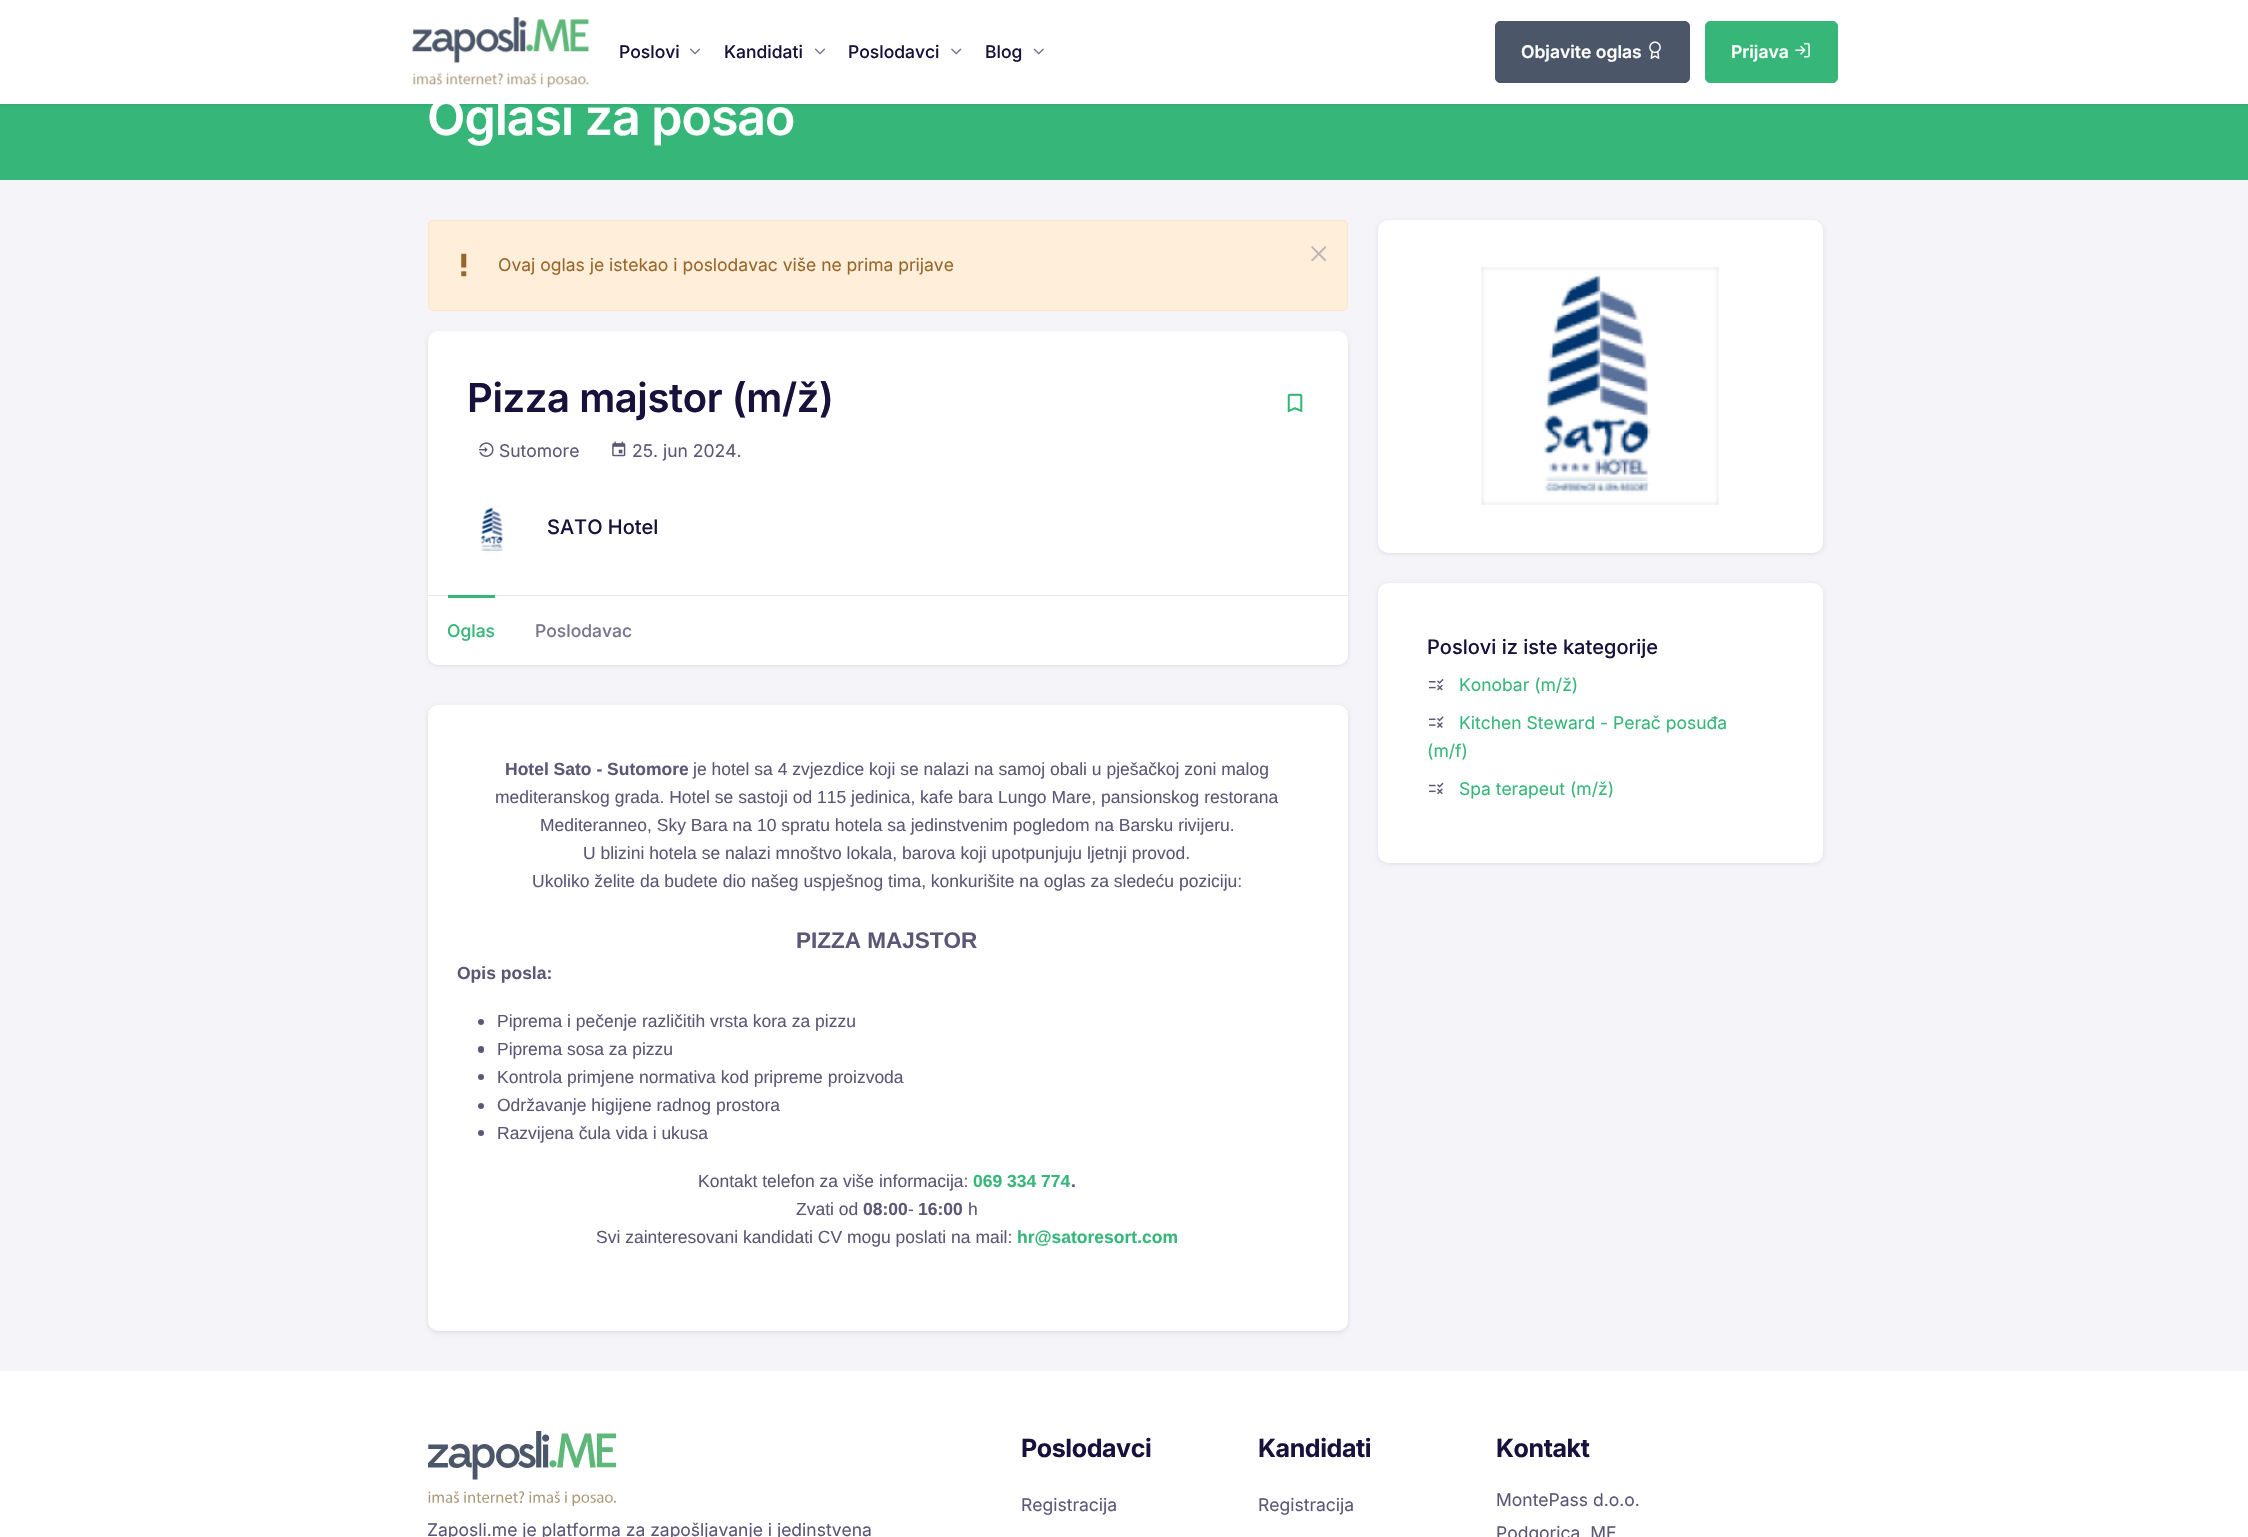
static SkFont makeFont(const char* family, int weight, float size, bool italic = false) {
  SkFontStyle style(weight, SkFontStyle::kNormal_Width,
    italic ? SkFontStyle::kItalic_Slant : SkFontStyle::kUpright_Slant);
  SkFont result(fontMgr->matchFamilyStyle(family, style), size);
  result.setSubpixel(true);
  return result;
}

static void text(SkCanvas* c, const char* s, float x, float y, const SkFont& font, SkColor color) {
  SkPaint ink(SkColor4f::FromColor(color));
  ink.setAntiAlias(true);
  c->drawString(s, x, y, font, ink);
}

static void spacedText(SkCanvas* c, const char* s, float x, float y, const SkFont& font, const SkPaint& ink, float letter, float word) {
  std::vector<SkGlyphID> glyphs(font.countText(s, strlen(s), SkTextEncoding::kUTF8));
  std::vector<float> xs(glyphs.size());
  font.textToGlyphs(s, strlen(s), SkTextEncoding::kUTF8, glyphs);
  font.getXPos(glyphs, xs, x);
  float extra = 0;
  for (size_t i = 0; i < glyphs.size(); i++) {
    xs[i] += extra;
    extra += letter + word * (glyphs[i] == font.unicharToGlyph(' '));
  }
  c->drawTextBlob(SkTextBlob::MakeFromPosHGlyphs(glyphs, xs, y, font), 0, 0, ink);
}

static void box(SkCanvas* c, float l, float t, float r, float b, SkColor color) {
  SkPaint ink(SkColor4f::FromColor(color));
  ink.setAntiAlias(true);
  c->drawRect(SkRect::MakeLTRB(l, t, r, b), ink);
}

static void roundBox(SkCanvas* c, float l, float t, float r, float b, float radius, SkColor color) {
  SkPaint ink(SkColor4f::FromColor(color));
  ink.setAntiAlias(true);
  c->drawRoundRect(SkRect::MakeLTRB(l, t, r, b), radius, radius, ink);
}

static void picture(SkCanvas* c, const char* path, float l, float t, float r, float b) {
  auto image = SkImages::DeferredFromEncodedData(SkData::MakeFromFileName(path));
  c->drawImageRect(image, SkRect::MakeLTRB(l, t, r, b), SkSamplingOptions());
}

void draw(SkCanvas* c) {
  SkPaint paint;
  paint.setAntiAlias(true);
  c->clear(0xfff5f4f8);
  box(c, 0, 104, 2248, 180, 0xff36b779);
  paint.setColor(0x17030047);
  paint.setMaskFilter(SkMaskFilter::MakeBlur(kNormal_SkBlurStyle, 2));
  c->drawRect(SkRect::MakeLTRB(0, 1, 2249, 105), paint);
  paint.setMaskFilter(nullptr);
  box(c, 0, 0, 2248, 104, 0xffffffff);
  picture(c, "img_01.png", 412, 17, 590, 88);
  SkFont face1 = makeFont("Inter", 500, 17.5f);
  text(c, "Poslovi", 619, 58, face1, 0xff18113c);
  picture(c, "img_02.png", 690, 48, 700, 55);
  text(c, "Kandidati", 724, 58, face1, 0xff18113c);
  picture(c, "img_02.png", 815, 48, 825, 55);
  text(c, "Poslodavci", 848, 58, face1, 0xff18113c);
  picture(c, "img_03.png", 951, 48, 962, 55);
  text(c, "Blog", 985, 58, face1, 0xff18113c);
  picture(c, "img_04.png", 1033, 48, 1044, 55);
  paint.setColor(0xff4b5668);
  c->drawRoundRect(SkRect::MakeLTRB(1495.5f, 21.5f, 1689.5f, 82.5f), 4.5f, 4.5f, paint);
  paint.setStyle(SkPaint::kStroke_Style);
  paint.setStrokeWidth(1);
  c->drawRoundRect(SkRect::MakeLTRB(1495.5f, 21.5f, 1689.5f, 82.5f), 4.5f, 4.5f, paint);
  SkFont face2 = makeFont("Inter", 600, 17.5f);
  text(c, "Objavite oglas", 1521, 58, face2, 0xffffffff);
  picture(c, "img_05.png", 1649, 41, 1661, 59);
  paint.setStyle(SkPaint::kFill_Style);
  paint.setColor(0xff36b779);
  c->drawRoundRect(SkRect::MakeLTRB(1705.5f, 21.5f, 1837.5f, 82.5f), 4.5f, 4.5f, paint);
  paint.setStyle(SkPaint::kStroke_Style);
  c->drawRoundRect(SkRect::MakeLTRB(1705.5f, 21.5f, 1837.5f, 82.5f), 4.5f, 4.5f, paint);
  text(c, "Prijava", 1731, 58, face2, 0xffffffff);
  picture(c, "img_06.png", 1795, 42, 1810, 58);
  SkFont face3 = makeFont("Inter", 600, 50);
  paint.setStyle(SkPaint::kFill_Style);
  paint.setColor(0xffffffff);
  spacedText(c, "Oglasi za posao", 427, 135, face3, paint, -1, 0);
  paint.setColor(0xffffeeda);
  c->drawRoundRect(SkRect::MakeLTRB(428.5f, 220.5f, 1347.5f, 310.5f), 4.5f, 4.5f, paint);
  paint.setStyle(SkPaint::kStroke_Style);
  paint.setColor(0xffffe6c8);
  c->drawRoundRect(SkRect::MakeLTRB(428.5f, 220.5f, 1347.5f, 310.5f), 4.5f, 4.5f, paint);
  picture(c, "img_07.png", 461, 253, 467, 277);
  SkFont face4 = makeFont("Inter", 400, 17.5f);
  text(c, "Ovaj oglas je istekao i poslodavac više ne prima prijave", 498, 271, face4, 0xff99662a);
  picture(c, "img_08.png", 1311, 246, 1326, 261);
  paint.setStyle(SkPaint::kFill_Style);
  paint.setColor(0x17030047);
  paint.setMaskFilter(SkMaskFilter::MakeBlur(kNormal_SkBlurStyle, 2));
  c->drawRoundRect(SkRect::MakeLTRB(428, 333, 1348, 666), 10, 10, paint);
  paint.setMaskFilter(nullptr);
  roundBox(c, 428, 331, 1348, 665, 10, 0xffffffff);
  SkFont face5 = makeFont("Inter", 600, 40);
  paint.setColor(0xff18113c);
  spacedText(c, "Pizza majstor (m/ž)", 467, 412, face5, paint, -0.4f, 0);
  picture(c, "img_09.png", 1287, 393, 1303, 413);
  picture(c, "img_10.png", 478, 442, 494, 457);
  text(c, "Sutomore", 499, 457, face4, 0xff5c5776);
  picture(c, "img_11.png", 612, 441, 626, 457);
  text(c, "25. jun 2024.", 632, 457, face4, 0xff5c5776);
  picture(c, "img_12.png", 481, 506, 503, 554);
  SkFont face6 = makeFont("Inter", 500, 20);
  text(c, "SATO Hotel", 547, 534, face6, 0xff18113c);
  box(c, 428, 595, 1348, 596, 0xffe8e7ed);
  box(c, 448, 595, 495, 598, 0xff36b779);
  text(c, "Oglas", 447, 637, face1, 0xff36b779);
  text(c, "Poslodavac", 535, 637, face1, 0xff79758f);
  paint.setColor(0x17030047);
  paint.setMaskFilter(SkMaskFilter::MakeBlur(kNormal_SkBlurStyle, 2));
  c->drawRoundRect(SkRect::MakeLTRB(428, 706, 1348, 1333), 10, 10, paint);
  paint.setMaskFilter(nullptr);
  roundBox(c, 428, 705, 1348, 1331, 10, 0xffffffff);
  SkFont face7 = makeFont("Liberation Sans", 700, 17.5f);
  text(c, "Hotel Sato - Sutomore", 505, 775, face7, 0xff5c5776);
  SkFont face8 = makeFont("Liberation Sans", 400, 17.5f);
  text(c, "je hotel sa 4 zvjezdice koji se nalazi na samoj obali u pješačkoj zoni malog", 693, 775, face8, 0xff5c5776);
  text(c, "mediteranskog grada. Hotel se sastoji od 115 jedinica, kafe bara Lungo Mare, pansionskog restorana", 495, 803, face8, 0xff5c5776);
  text(c, "Mediteranneo, Sky Bara na 10 spratu hotela sa jedinstvenim pogledom na Barsku rivijeru.", 540, 831, face8, 0xff5c5776);
  text(c, "U blizini hotela se nalazi mnoštvo lokala, barova koji upotpunjuju ljetnji provod.", 583, 859, face8, 0xff5c5776);
  text(c, "Ukoliko želite da budete dio našeg uspješnog tima, konkurišite na oglas za sledeću poziciju:", 532, 887, face8, 0xff5c5776);
  SkFont face9 = makeFont("Liberation Sans", 700, 22.5f);
  text(c, "PIZZA MAJSTOR", 796, 948, face9, 0xff5c5776);
  text(c, "Opis posla:", 457, 979, face7, 0xff5c5776);
  paint.setColor(0xff5c5776);
  c->drawCircle(481, 1022, 3, paint);
  text(c, "Piprema i pečenje različitih vrsta kora za pizzu", 497, 1027, face8, 0xff5c5776);
  roundBox(c, 478, 1046, 484, 1053, 3, 0xff5c5776);
  text(c, "Piprema sosa za pizzu", 497, 1055, face8, 0xff5c5776);
  c->drawCircle(481, 1077, 3, paint);
  text(c, "Kontrola primjene normativa kod pripreme proizvoda", 497, 1083, face8, 0xff5c5776);
  c->drawCircle(481, 1106, 3, paint);
  text(c, "Održavanje higijene radnog prostora", 497, 1111, face8, 0xff5c5776);
  c->drawCircle(481, 1133, 3, paint);
  text(c, "Razvijena čula vida i ukusa", 497, 1139, face8, 0xff5c5776);
  text(c, "Kontakt telefon za više informacija:", 698, 1187, face8, 0xff5c5776);
  text(c, "069 334 774", 973, 1187, face7, 0xff36b779);
  text(c, ".", 1071, 1187, face7, 0xff5c5776);
  text(c, "Zvati od", 796, 1215, face8, 0xff5c5776);
  text(c, "08:00", 863, 1215, face7, 0xff5c5776);
  text(c, "-", 908, 1215, face8, 0xff5c5776);
  text(c, "16:00", 918, 1215, face7, 0xff5c5776);
  text(c, "h", 968, 1215, face8, 0xff5c5776);
  text(c, "Svi zainteresovani kandidati CV mogu poslati na mail:", 596, 1243, face8, 0xff5c5776);
  text(c, "hr@satoresort.com", 1017, 1243, face7, 0xff36b779);
  paint.setColor(0x17030047);
  paint.setMaskFilter(SkMaskFilter::MakeBlur(kNormal_SkBlurStyle, 2));
  c->drawRoundRect(SkRect::MakeLTRB(1378, 221, 1823, 554), 10, 10, paint);
  paint.setMaskFilter(nullptr);
  roundBox(c, 1378, 220, 1823, 553, 10, 0xffffffff);
  picture(c, "img_13.png", 1481, 267, 1719, 505);
  paint.setMaskFilter(SkMaskFilter::MakeBlur(kNormal_SkBlurStyle, 2));
  c->drawRoundRect(SkRect::MakeLTRB(1378, 584, 1823, 864), 10, 10, paint);
  paint.setMaskFilter(nullptr);
  roundBox(c, 1378, 583, 1823, 863, 10, 0xffffffff);
  text(c, "Poslovi iz iste kategorije", 1427, 654, face6, 0xff18113c);
  picture(c, "img_14.png", 1428, 679, 1444, 691);
  text(c, "Konobar (m/ž)", 1459, 691, face4, 0xff36b779);
  picture(c, "img_15.png", 1428, 716, 1444, 728);
  text(c, "Kitchen Steward - Perač posuđa", 1459, 729, face4, 0xff36b779);
  text(c, "(m/f)", 1427, 757, face4, 0xff36b779);
  picture(c, "img_16.png", 1428, 782, 1444, 795);
  text(c, "Spa terapeut (m/ž)", 1459, 795, face4, 0xff36b779);
  box(c, 0, 1371, 2248, 1537, 0xffffffff);
  picture(c, "img_17.png", 428, 1431, 616, 1506);
  text(c, "Zaposli.me je platforma za zapošljavanje i jedinstvena", 427, 1536, face4, 0xff5c5776);
  SkFont face10 = makeFont("Inter", 700, 25);
  paint.setColor(0xff18113c);
  spacedText(c, "Poslodavci", 1021, 1457, face10, paint, -0.4f, 0);
  text(c, "Registracija", 1021, 1511, face4, 0xff5c5776);
  spacedText(c, "Kandidati", 1258, 1457, face10, paint, -0.4f, 0);
  text(c, "Registracija", 1258, 1511, face4, 0xff5c5776);
  spacedText(c, "Kontakt", 1496, 1457, face10, paint, -0.4f, 0);
  text(c, "MontePass d.o.o.", 1496, 1506, face4, 0xff5c5776);
  text(c, "Podgorica, ME", 1496, 1539, face4, 0xff5c5776);
}
